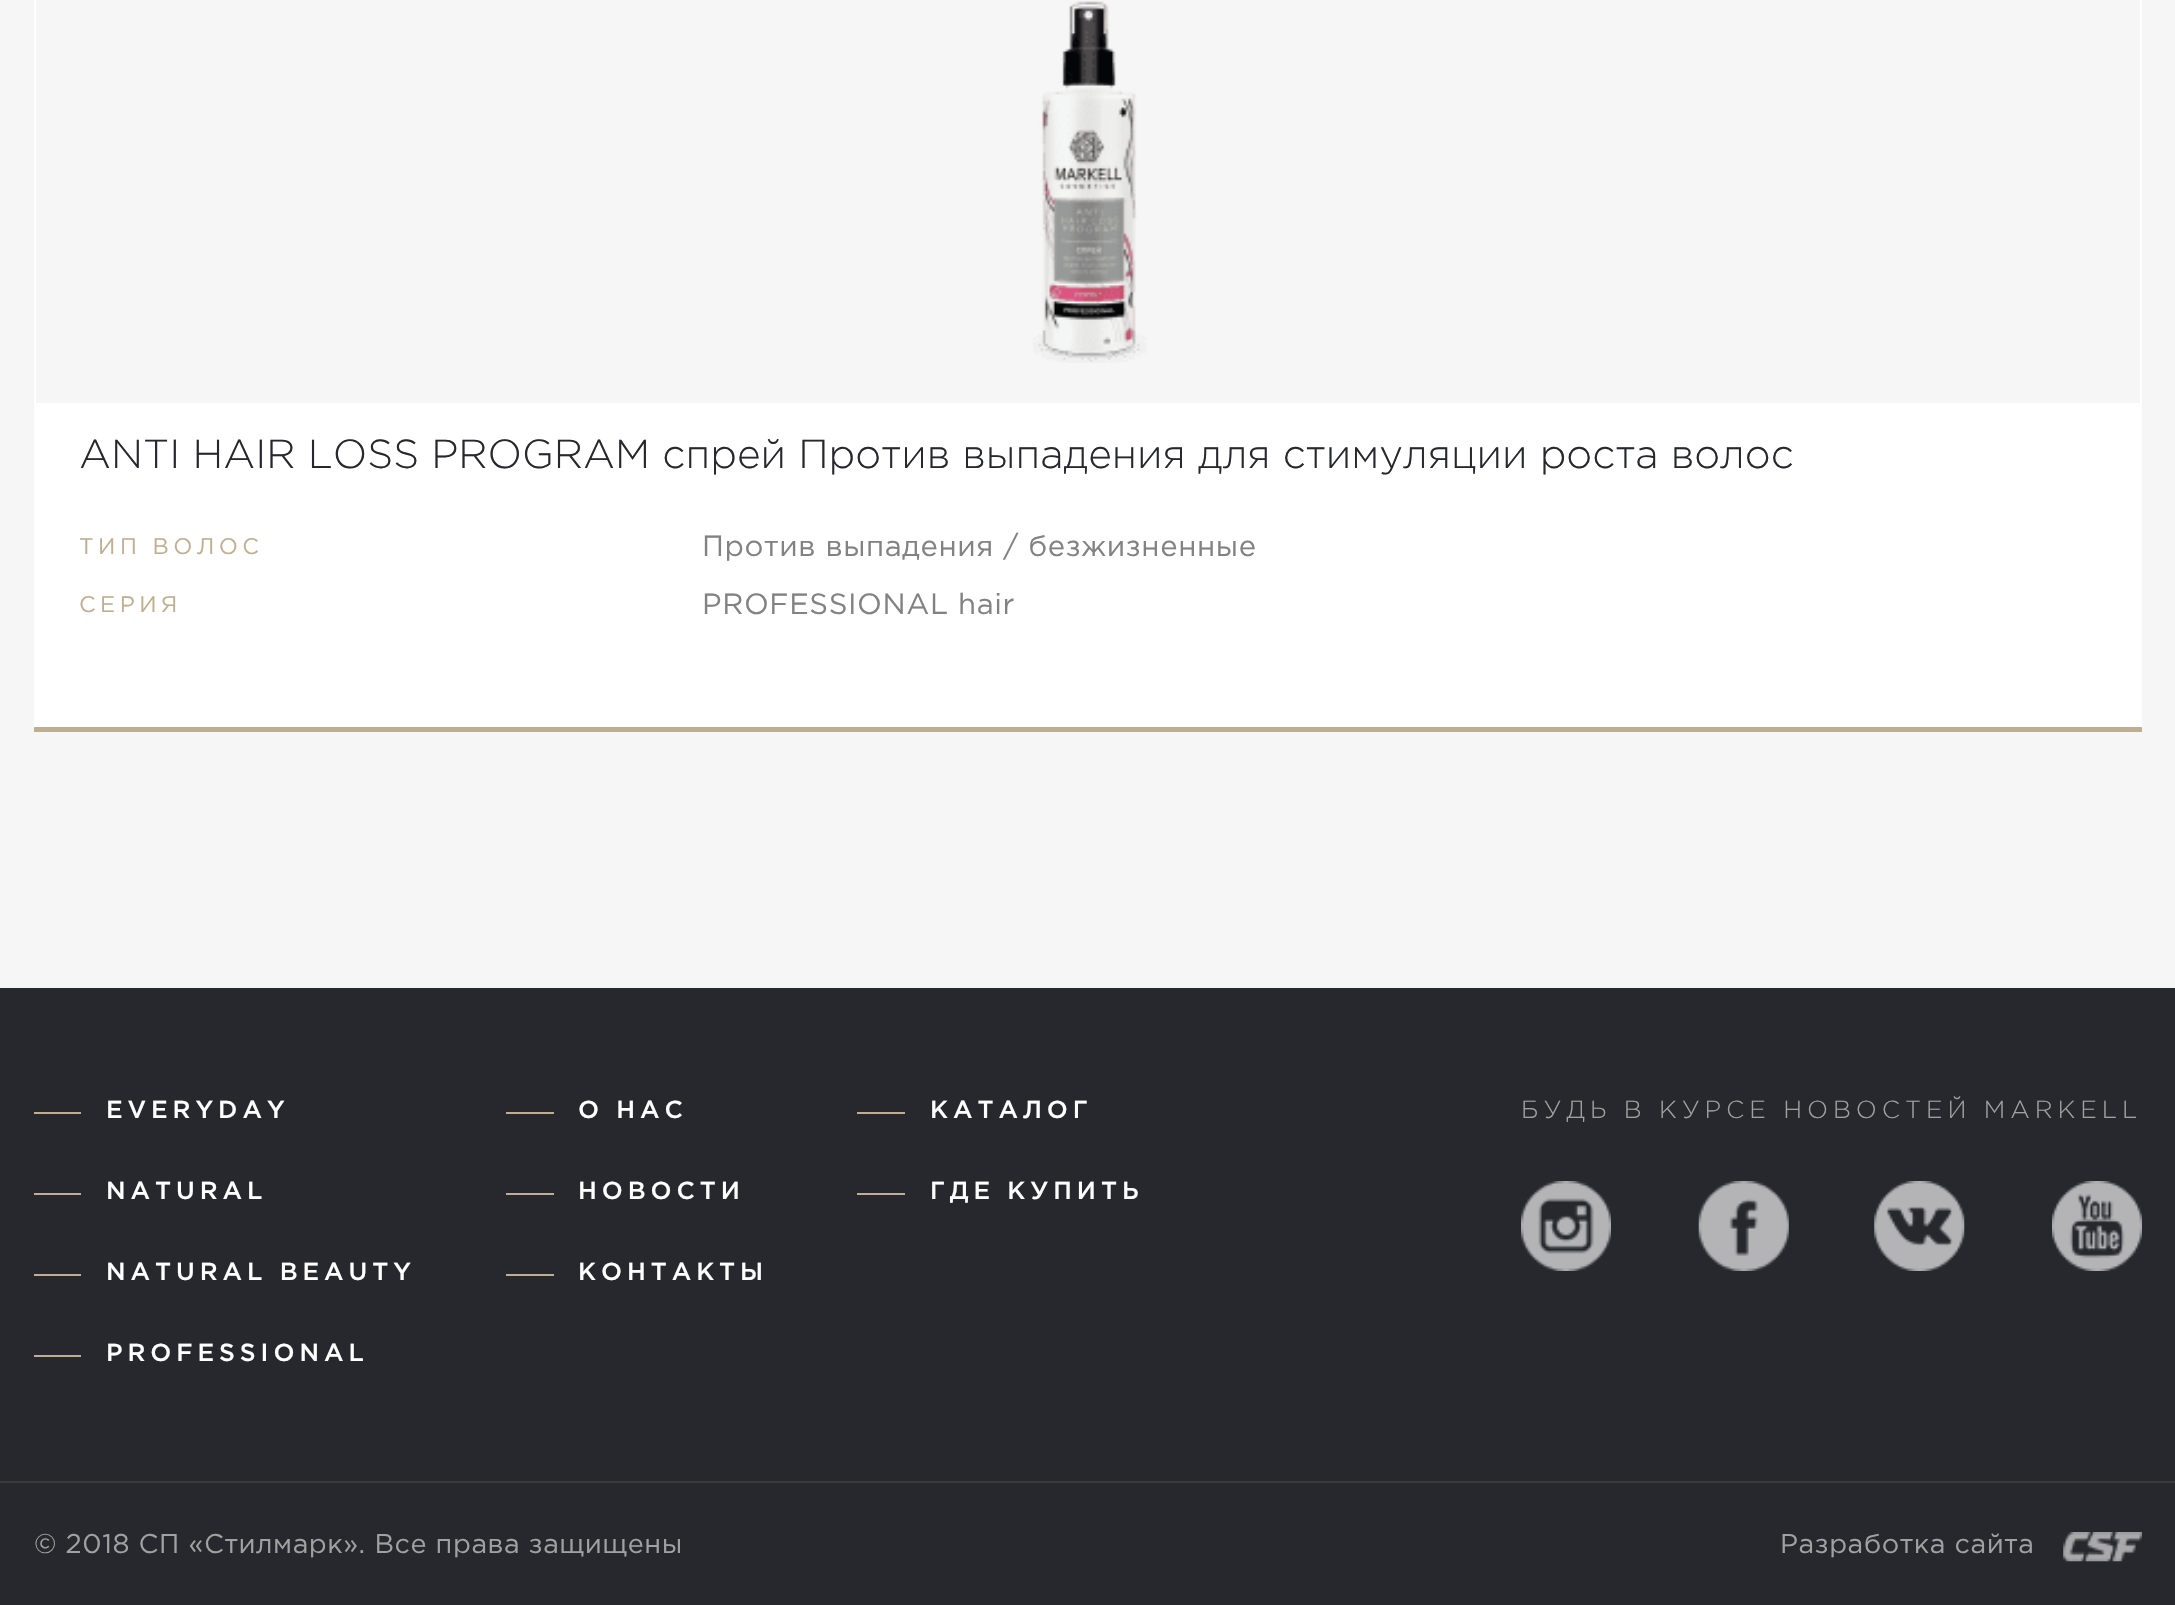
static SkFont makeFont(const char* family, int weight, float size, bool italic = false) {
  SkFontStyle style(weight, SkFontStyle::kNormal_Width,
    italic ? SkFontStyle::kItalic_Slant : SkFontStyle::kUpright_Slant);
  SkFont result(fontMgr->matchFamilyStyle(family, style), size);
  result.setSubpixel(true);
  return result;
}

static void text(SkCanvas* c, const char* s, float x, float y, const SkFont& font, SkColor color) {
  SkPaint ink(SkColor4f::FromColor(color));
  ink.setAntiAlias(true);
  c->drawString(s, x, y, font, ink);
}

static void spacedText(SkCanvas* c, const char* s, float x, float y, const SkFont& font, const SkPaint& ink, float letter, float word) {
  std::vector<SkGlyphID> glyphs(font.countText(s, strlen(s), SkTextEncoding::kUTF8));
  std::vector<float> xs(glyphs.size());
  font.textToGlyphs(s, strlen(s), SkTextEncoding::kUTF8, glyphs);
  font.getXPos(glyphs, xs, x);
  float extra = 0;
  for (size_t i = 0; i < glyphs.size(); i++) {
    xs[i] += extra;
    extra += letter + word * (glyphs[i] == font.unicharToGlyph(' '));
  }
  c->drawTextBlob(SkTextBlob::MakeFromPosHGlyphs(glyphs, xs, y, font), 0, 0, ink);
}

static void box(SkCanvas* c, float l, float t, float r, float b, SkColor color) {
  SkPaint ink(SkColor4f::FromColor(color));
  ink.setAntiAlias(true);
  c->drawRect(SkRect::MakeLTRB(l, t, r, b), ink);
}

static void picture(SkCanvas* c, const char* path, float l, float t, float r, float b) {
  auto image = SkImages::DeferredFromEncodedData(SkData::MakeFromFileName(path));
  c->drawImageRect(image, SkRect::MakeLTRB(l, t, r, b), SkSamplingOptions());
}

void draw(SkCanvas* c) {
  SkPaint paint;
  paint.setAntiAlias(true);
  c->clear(0xff27282d);
  box(c, 0, 0, 2175, 988, 0xfff6f6f6);
  box(c, 34, 0, 2142, 727, 0xffffffff);
  box(c, 36, 0, 2140, 403, 0xfff6f6f6);
  picture(c, "img_01.png", 1033, 1, 1147, 363);
  box(c, 34, 727, 2142, 732, 0xffbfae91);
  SkFont face1 = makeFont("Gotham", 400, 40.5f);
  text(c, "ANTI HAIR LOSS PROGRAM спрей Против выпадения для стимуляции роста волос", 79, 468, face1, 0xff27282d);
  SkFont face2 = makeFont("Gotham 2", 400, 22.5f);
  paint.setColor(0xffbfae91);
  spacedText(c, "ТИП ВОЛОС", 79, 554, face2, paint, 4.5f, 0);
  SkFont face3 = makeFont("Gotham 2", 400, 29.25f);
  paint.setColor(0xff828282);
  spacedText(c, "Против выпадения / безжизненные", 702, 556, face3, paint, 0.6f, 0);
  paint.setColor(0xffbfae91);
  spacedText(c, "СЕРИЯ", 79, 612, face2, paint, 4.5f, 0);
  paint.setColor(0xff828282);
  spacedText(c, "PROFESSIONAL hair", 702, 614, face3, paint, 0.6f, 0);
  box(c, 34, 1112, 81, 1114, 0xffbfae91);
  SkFont face4 = makeFont("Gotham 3", 400, 24.75f);
  paint.setColor(0xffffffff);
  spacedText(c, "EVERYDAY", 106, 1118, face4, paint, 4.95f, 0);
  box(c, 34, 1193, 81, 1195, 0xffbfae91);
  spacedText(c, "NATURAL", 106, 1199, face4, paint, 4.95f, 0);
  box(c, 34, 1274, 81, 1276, 0xffbfae91);
  spacedText(c, "NATURAL BEAUTY", 106, 1280, face4, paint, 4.95f, 0);
  box(c, 34, 1355, 81, 1357, 0xffbfae91);
  spacedText(c, "PROFESSIONAL", 106, 1361, face4, paint, 4.95f, 0);
  box(c, 506, 1112, 554, 1114, 0xffbfae91);
  spacedText(c, "О НАС", 578, 1118, face4, paint, 4.95f, 0);
  box(c, 506, 1193, 554, 1195, 0xffbfae91);
  spacedText(c, "НОВОСТИ", 578, 1199, face4, paint, 4.95f, 0);
  box(c, 506, 1274, 554, 1276, 0xffbfae91);
  spacedText(c, "КОНТАКТЫ", 578, 1280, face4, paint, 4.95f, 0);
  box(c, 857, 1112, 905, 1114, 0xffbfae91);
  spacedText(c, "КАТАЛОГ", 930, 1118, face4, paint, 4.95f, 0);
  box(c, 857, 1193, 905, 1195, 0xffbfae91);
  spacedText(c, "ГДЕ КУПИТЬ", 930, 1199, face4, paint, 4.95f, 0);
  SkFont face5 = makeFont("Gotham", 400, 24.75f);
  paint.setColor(0xffa1a1a1);
  spacedText(c, "БУДЬ В КУРСЕ НОВОСТЕЙ MARKELL", 1521, 1118, face5, paint, 4.95f, 0);
  picture(c, "img_02.png", 1521, 1181, 1611, 1271);
  picture(c, "img_03.png", 1698, 1181, 1789, 1271);
  picture(c, "img_04.png", 1874, 1181, 1965, 1271);
  picture(c, "img_05.png", 2052, 1181, 2142, 1271);
  box(c, 0, 1481, 2175, 1483, 0xff3b3b3e);
  SkFont face6 = makeFont("Gotham 2", 400, 27);
  spacedText(c, "© 2018 СП «Стилмарк». Все права защищены", 34, 1553, face6, paint, 0.55f, 0);
  spacedText(c, "Разработка сайта", 1780, 1553, face6, paint, 0.55f, 0);
  picture(c, "img_06.png", 2063, 1532, 2142, 1562);
}
